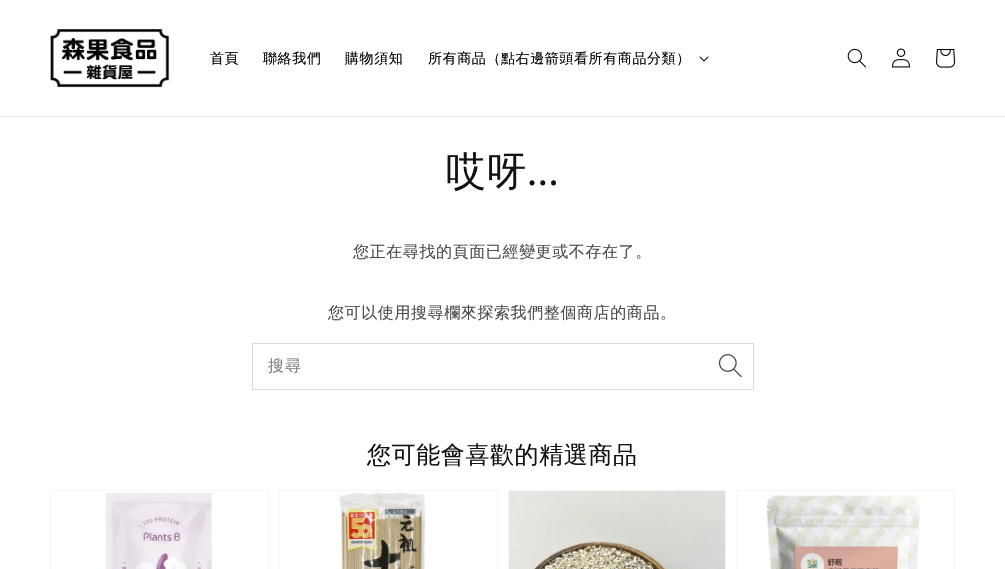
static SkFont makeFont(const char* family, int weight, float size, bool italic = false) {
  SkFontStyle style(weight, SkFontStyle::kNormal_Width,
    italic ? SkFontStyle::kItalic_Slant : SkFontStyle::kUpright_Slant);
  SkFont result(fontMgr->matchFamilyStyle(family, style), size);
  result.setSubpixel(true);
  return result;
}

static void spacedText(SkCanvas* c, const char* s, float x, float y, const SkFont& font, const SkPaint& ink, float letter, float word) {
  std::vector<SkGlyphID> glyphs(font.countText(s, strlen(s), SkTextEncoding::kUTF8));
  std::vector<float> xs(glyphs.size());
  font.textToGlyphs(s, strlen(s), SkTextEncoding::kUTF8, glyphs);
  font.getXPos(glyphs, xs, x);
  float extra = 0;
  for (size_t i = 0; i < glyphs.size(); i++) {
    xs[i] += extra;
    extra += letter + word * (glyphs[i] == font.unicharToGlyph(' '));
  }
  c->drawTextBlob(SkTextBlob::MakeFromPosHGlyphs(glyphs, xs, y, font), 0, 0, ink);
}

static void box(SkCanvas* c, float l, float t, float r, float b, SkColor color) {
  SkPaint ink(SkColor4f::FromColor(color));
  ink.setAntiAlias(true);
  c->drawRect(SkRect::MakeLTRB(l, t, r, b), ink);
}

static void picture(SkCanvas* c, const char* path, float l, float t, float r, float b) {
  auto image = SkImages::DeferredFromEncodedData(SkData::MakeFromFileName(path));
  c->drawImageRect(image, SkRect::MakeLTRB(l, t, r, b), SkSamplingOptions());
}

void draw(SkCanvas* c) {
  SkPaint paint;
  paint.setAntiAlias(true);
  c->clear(0xffffffff);
  box(c, 0, 116, 1005, 117, 0xffececec);
  picture(c, "img_01.png", 50, 29, 170, 88);
  SkFont face1 = makeFont("WenQuanYi Zen Hei", 500, 14);
  paint.setColor(0xff000000);
  spacedText(c, "首頁", 210, 63, face1, paint, 0.6f, 0);
  spacedText(c, "聯絡我們", 263, 63, face1, paint, 0.6f, 0);
  spacedText(c, "購物須知", 345, 63, face1, paint, 0.6f, 0);
  spacedText(c, "所有商品（點右邊箭頭看所有商品分類）", 428, 63, face1, paint, 0.6f, 0);
  picture(c, "img_02.png", 699, 56, 709, 62);
  picture(c, "img_03.png", 847, 48, 866, 68);
  picture(c, "img_04.png", 892, 48, 910, 68);
  picture(c, "img_05.png", 936, 49, 956, 68);
  SkFont face2 = makeFont("WenQuanYi Zen Hei", 500, 40);
  paint.setColor(0xff121212);
  spacedText(c, "哎呀", 446, 185, face2, paint, 0.6f, 0);
  SkFont face3 = makeFont("Assistant", 500, 40);
  spacedText(c, "...", 527, 185, face3, paint, 0.6f, 0);
  SkFont face4 = makeFont("WenQuanYi Zen Hei", 500, 16);
  paint.setColor(0xff4d4d4d);
  spacedText(c, "您正在尋找的頁面已經變更或不存在了。", 353, 257, face4, paint, 0.6f, 0);
  spacedText(c, "您可以使用搜尋欄來探索我們整個商店的商品。", 328, 318, face4, paint, 0.6f, 0);
  paint.setStyle(SkPaint::kStroke_Style);
  paint.setStrokeWidth(1);
  paint.setColor(0xffdbdbdb);
  c->drawRect(SkRect::MakeLTRB(252.5f, 343.5f, 753.5f, 389.5f), paint);
  paint.setStyle(SkPaint::kFill_Style);
  paint.setColor(0xff7d7d7d);
  spacedText(c, "搜尋", 268, 371, face4, paint, 1, 0);
  picture(c, "img_06.png", 718, 354, 742, 378);
  SkFont face5 = makeFont("WenQuanYi Zen Hei", 500, 24);
  paint.setColor(0xff121212);
  spacedText(c, "您可能會喜歡的精選商品", 367, 463, face5, paint, 0.6f, 0);
  paint.setStyle(SkPaint::kStroke_Style);
  paint.setColor(0xfff6f6f6);
  c->drawRect(SkRect::MakeLTRB(50.5f, 490.5f, 268.5f, 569.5f), paint);
  picture(c, "img_07.png", 105, 492, 212, 569);
  c->drawRect(SkRect::MakeLTRB(279.5f, 490.5f, 497.5f, 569.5f), paint);
  picture(c, "img_08.png", 338, 492, 426, 569);
  c->drawRect(SkRect::MakeLTRB(508.5f, 490.5f, 725.5f, 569.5f), paint);
  picture(c, "img_09.png", 509, 491, 725, 569);
  c->drawRect(SkRect::MakeLTRB(736.5f, 490.5f, 954.5f, 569.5f), paint);
  picture(c, "img_10.png", 766, 494, 920, 569);
}
